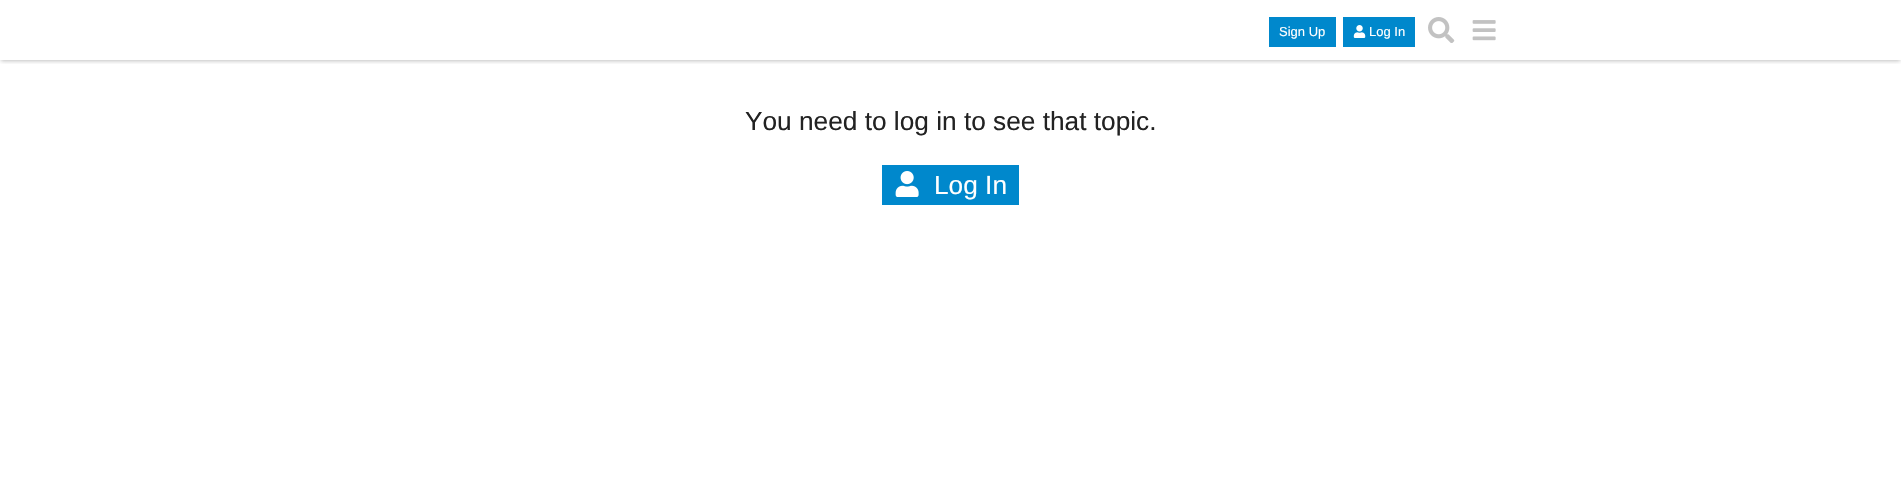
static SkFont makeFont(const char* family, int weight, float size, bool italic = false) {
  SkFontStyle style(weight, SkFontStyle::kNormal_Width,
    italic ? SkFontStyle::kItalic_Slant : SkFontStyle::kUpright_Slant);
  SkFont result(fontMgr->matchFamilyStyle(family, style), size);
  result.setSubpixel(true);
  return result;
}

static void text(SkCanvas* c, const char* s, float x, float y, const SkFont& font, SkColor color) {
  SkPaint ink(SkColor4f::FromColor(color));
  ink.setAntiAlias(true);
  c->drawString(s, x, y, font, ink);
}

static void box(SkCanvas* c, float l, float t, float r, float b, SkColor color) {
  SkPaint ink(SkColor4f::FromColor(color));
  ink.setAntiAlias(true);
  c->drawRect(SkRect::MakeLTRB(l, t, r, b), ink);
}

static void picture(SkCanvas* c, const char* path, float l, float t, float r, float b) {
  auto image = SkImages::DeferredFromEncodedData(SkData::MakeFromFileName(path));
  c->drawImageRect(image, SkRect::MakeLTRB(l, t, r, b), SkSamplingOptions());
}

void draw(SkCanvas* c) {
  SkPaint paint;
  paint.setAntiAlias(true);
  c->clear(0xffffffff);
  c->save();
  c->clipRect(SkRect::MakeLTRB(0, 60, 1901, 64));
  paint.setColor(0x40000000);
  paint.setMaskFilter(SkMaskFilter::MakeBlur(kNormal_SkBlurStyle, 2));
  c->drawRect(SkRect::MakeLTRB(1, 3, 1900, 61), paint);
  paint.setMaskFilter(nullptr);
  c->restore();
  box(c, 1269, 17, 1336, 47, 0xff0088cc);
  SkFont face1 = makeFont("Liberation Sans", 400, 13);
  text(c, "Sign Up", 1279, 36, face1, 0xffffffff);
  box(c, 1343, 17, 1415, 47, 0xff0088cc);
  picture(c, "img_01.png", 1353, 25, 1366, 38);
  text(c, "Log In", 1369, 36, face1, 0xffffffff);
  picture(c, "img_02.png", 1428, 17, 1455, 43);
  picture(c, "img_03.png", 1472, 20, 1496, 41);
  SkFont face2 = makeFont("Liberation Sans", 400, 26.25f);
  text(c, "You need to log in to see that topic.", 745, 130, face2, 0xff222222);
  box(c, 882, 165, 1019, 205, 0xff0088cc);
  picture(c, "img_04.png", 895, 171, 919, 197);
  text(c, "Log In", 934, 194, face2, 0xffffffff);
}
